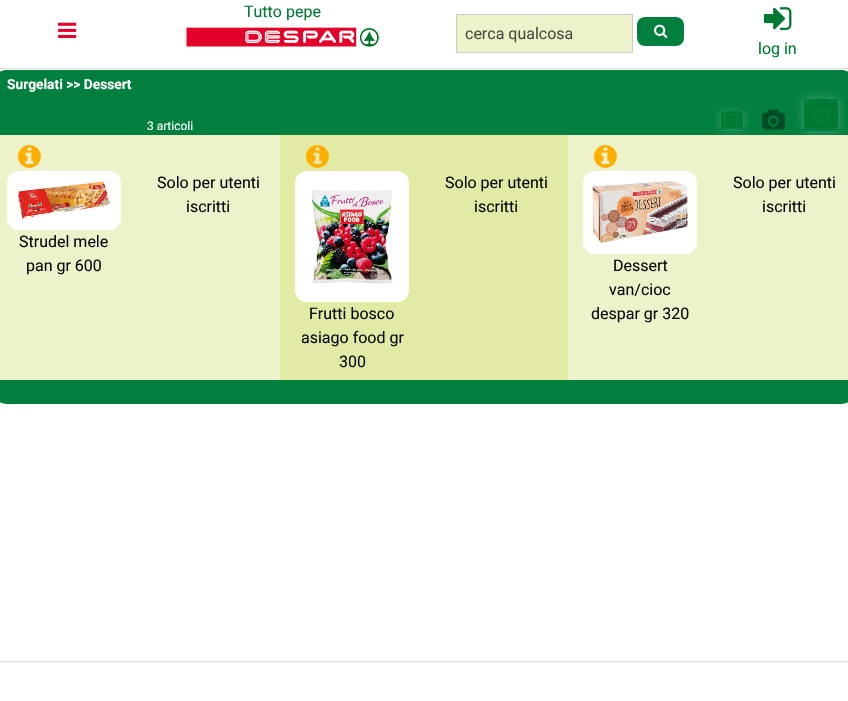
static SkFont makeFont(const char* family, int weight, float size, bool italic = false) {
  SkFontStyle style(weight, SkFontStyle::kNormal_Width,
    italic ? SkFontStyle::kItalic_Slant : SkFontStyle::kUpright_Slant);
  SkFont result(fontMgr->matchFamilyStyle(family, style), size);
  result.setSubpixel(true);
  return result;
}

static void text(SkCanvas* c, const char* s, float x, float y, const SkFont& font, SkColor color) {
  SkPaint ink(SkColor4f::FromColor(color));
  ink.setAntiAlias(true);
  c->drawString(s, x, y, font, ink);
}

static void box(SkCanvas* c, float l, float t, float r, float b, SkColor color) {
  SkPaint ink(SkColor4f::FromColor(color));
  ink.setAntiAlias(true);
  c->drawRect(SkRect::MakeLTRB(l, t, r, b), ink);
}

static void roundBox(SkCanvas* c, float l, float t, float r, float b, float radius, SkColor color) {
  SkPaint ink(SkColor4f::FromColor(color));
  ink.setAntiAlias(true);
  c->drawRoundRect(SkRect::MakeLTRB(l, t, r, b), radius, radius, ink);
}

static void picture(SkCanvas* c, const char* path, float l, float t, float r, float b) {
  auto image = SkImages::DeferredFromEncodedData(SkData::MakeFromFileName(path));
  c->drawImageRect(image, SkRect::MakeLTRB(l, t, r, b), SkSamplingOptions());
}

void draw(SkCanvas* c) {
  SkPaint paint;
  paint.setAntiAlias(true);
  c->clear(0xffffffff);
  box(c, 0, 68, 848, 69, 0xffdbe0e6);
  SkFont face1 = makeFont("Roboto", 400, 16);
  text(c, "Tutto pepe", 244, 17, face1, 0xff007a33);
  picture(c, "img_01.png", 185, 27, 380, 47);
  picture(c, "img_02.png", 58, 22, 77, 38);
  paint.setColor(0xffedf2ca);
  c->drawRect(SkRect::MakeLTRB(456.5f, 14.5f, 632.5f, 52.5f), paint);
  paint.setStyle(SkPaint::kStroke_Style);
  paint.setStrokeWidth(1);
  paint.setColor(0xffcacaca);
  c->drawRect(SkRect::MakeLTRB(456.5f, 14.5f, 632.5f, 52.5f), paint);
  text(c, "cerca qualcosa", 465, 39, face1, 0xff494b3f);
  roundBox(c, 637, 17, 684, 46, 8, 0xff007f3e);
  picture(c, "img_03.png", 654, 24, 668, 38);
  picture(c, "img_04.png", 764, 7, 792, 30);
  text(c, "log in", 758, 54, face1, 0xff007a33);
  paint.setStyle(SkPaint::kFill_Style);
  paint.setColor(0xff007f3e);
  c->drawPath(SkPathBuilder().moveTo(7, 70).lineTo(841, 70).cubicTo(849.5f, 70, 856, 76.5f, 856, 85).lineTo(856, 99).lineTo(-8, 99).lineTo(-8, 85).cubicTo(-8, 76.5f, -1.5f, 70, 7, 70).close().detach(), paint);
  SkFont face2 = makeFont("Roboto", 700, 13.75f);
  text(c, "Surgelati >> Dessert", 7, 89, face2, 0xffffffff);
  box(c, 0, 99, 848, 135, 0xff007f3e);
  SkFont face3 = makeFont("Roboto", 400, 12);
  text(c, "3 articoli", 147, 130, face3, 0xffffffff);
  c->save();
  c->clipPath(SkPathBuilder(SkPathFillType::kEvenOdd).moveTo(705, 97).lineTo(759, 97).lineTo(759, 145).lineTo(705, 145).close().moveTo(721, 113).lineTo(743, 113).lineTo(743, 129).lineTo(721, 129).close().detach(), true);
  paint.setColor(0x4dffffff);
  paint.setMaskFilter(SkMaskFilter::MakeBlur(kNormal_SkBlurStyle, 5));
  c->drawRect(SkRect::MakeLTRB(721, 113, 743, 129), paint);
  paint.setMaskFilter(nullptr);
  c->restore();
  picture(c, "img_05.png", 721, 111, 743, 128);
  picture(c, "img_06.png", 762, 109, 785, 130);
  c->save();
  c->clipPath(SkPathBuilder(SkPathFillType::kEvenOdd).moveTo(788, 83).lineTo(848, 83).lineTo(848, 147).lineTo(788, 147).close().moveTo(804, 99).lineTo(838, 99).lineTo(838, 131).lineTo(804, 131).close().detach(), true);
  paint.setMaskFilter(SkMaskFilter::MakeBlur(kNormal_SkBlurStyle, 5));
  c->drawRect(SkRect::MakeLTRB(804, 99, 838, 131), paint);
  paint.setMaskFilter(nullptr);
  c->restore();
  picture(c, "img_07.png", 804, 98, 839, 128);
  box(c, 0, 135, 280, 380, 0xffedf2ca);
  picture(c, "img_08.png", 18, 145, 41, 168);
  text(c, "Solo per utenti", 157, 188, face1, 0xff0a0a0a);
  text(c, "iscritti", 186, 212, face1, 0xff0a0a0a);
  roundBox(c, 7, 171, 121, 230, 12, 0xffffffff);
  picture(c, "img_09.png", 18, 181, 111, 219);
  text(c, "Strudel mele", 19, 247, face1, 0xff0a0a0a);
  text(c, "pan gr 600", 26, 271, face1, 0xff0a0a0a);
  box(c, 280, 135, 568, 380, 0xffe2eaa6);
  picture(c, "img_10.png", 306, 145, 329, 168);
  text(c, "Solo per utenti", 445, 188, face1, 0xff0a0a0a);
  text(c, "iscritti", 474, 212, face1, 0xff0a0a0a);
  roundBox(c, 295, 171, 409, 302, 12, 0xffffffff);
  picture(c, "img_11.png", 311, 190, 393, 284);
  text(c, "Frutti bosco", 309, 319, face1, 0xff0a0a0a);
  text(c, "asiago food gr", 301, 343, face1, 0xff0a0a0a);
  text(c, "300", 339, 367, face1, 0xff0a0a0a);
  box(c, 568, 135, 848, 380, 0xffedf2ca);
  picture(c, "img_08.png", 594, 145, 617, 168);
  text(c, "Solo per utenti", 733, 188, face1, 0xff0a0a0a);
  text(c, "iscritti", 762, 212, face1, 0xff0a0a0a);
  roundBox(c, 583, 171, 697, 254, 12, 0xffffffff);
  picture(c, "img_12.png", 592, 181, 688, 243);
  text(c, "Dessert", 613, 271, face1, 0xff0a0a0a);
  text(c, "van/cioc", 609, 295, face1, 0xff0a0a0a);
  text(c, "despar gr 320", 591, 319, face1, 0xff0a0a0a);
  paint.setColor(0xff007f3e);
  c->drawPath(SkPathBuilder().moveTo(-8, 380).lineTo(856, 380).lineTo(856, 389).cubicTo(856, 397.5f, 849.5f, 404, 841, 404).lineTo(7, 404).cubicTo(-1.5f, 404, -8, 397.5f, -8, 389).close().detach(), paint);
  box(c, 0, 661, 848, 662, 0xffdbe0e6);
}
